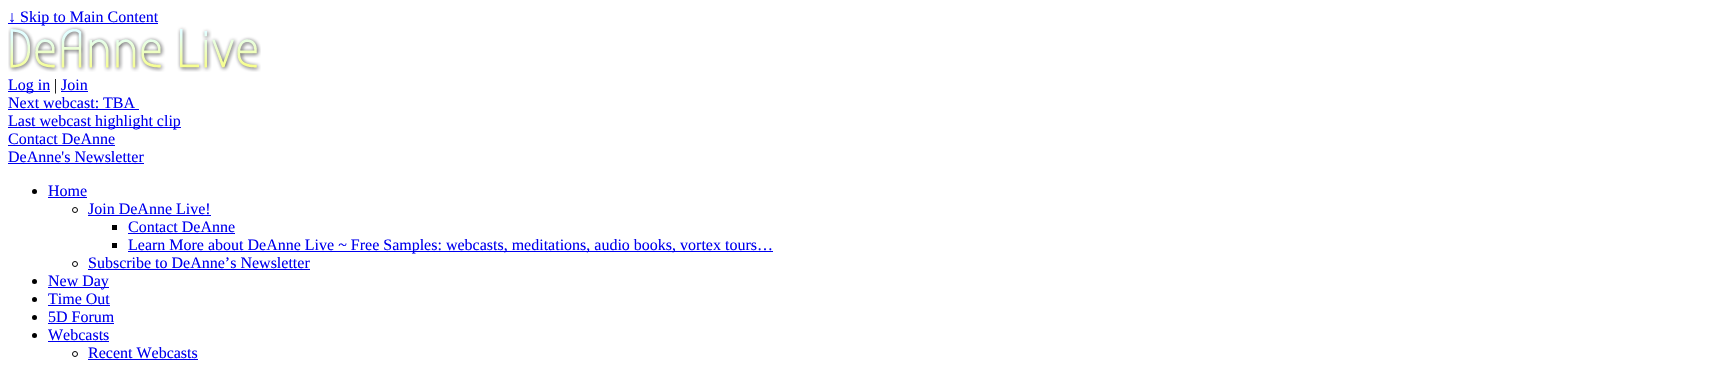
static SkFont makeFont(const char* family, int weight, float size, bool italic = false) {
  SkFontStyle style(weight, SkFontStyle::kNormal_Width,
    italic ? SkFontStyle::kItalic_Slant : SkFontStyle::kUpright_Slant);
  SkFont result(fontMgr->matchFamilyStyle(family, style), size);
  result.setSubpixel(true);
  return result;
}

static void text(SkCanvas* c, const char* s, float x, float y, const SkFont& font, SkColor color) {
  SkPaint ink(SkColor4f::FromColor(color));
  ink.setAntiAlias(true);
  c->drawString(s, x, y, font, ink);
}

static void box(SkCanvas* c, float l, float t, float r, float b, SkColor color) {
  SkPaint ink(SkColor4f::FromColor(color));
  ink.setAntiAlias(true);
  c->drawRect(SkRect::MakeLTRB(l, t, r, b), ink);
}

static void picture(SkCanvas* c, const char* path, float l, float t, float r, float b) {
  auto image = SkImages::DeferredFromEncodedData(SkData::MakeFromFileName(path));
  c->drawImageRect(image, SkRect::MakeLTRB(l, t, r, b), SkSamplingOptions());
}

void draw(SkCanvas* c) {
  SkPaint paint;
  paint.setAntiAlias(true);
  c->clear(0xffffffff);
  box(c, 8, 23, 158, 24, 0xff0000ee);
  SkFont face1 = makeFont("Liberation Serif", 400, 16);
  text(c, "↓ Skip to Main Content", 8, 22, face1, 0xff0000ee);
  picture(c, "img_01.png", 8, 26, 261, 72);
  box(c, 8, 91, 50, 92, 0xff0000ee);
  text(c, "Log in", 8, 90, face1, 0xff0000ee);
  text(c, "|", 54, 90, face1, 0xff000000);
  text(c, "Join", 61, 90, face1, 0xff0000ee);
  box(c, 61, 91, 88, 92, 0xff0000ee);
  text(c, "Next webcast: TBA", 8, 108, face1, 0xff0000ee);
  box(c, 8, 109, 139, 110, 0xff0000ee);
  box(c, 8, 127, 181, 128, 0xff0000ee);
  text(c, "Last webcast highlight clip", 8, 126, face1, 0xff0000ee);
  text(c, "Contact DeAnne", 8, 144, face1, 0xff0000ee);
  box(c, 8, 145, 115, 146, 0xff0000ee);
  text(c, "DeAnne's Newsletter", 8, 162, face1, 0xff0000ee);
  box(c, 8, 163, 144, 164, 0xff0000ee);
  paint.setColor(0xff000000);
  c->drawCircle(34.5f, 191.5f, 2.5f, paint);
  text(c, "Home", 48, 196, face1, 0xff0000ee);
  box(c, 48, 197, 87, 198, 0xff0000ee);
  paint.setStyle(SkPaint::kStroke_Style);
  paint.setStrokeWidth(1);
  c->drawCircle(75, 210, 2.5f, paint);
  text(c, "Join DeAnne Live!", 88, 214, face1, 0xff0000ee);
  box(c, 88, 215, 211, 216, 0xff0000ee);
  box(c, 112, 225, 117, 230, 0xff000000);
  text(c, "Contact DeAnne", 128, 232, face1, 0xff0000ee);
  box(c, 128, 233, 235, 234, 0xff0000ee);
  box(c, 112, 243, 117, 248, 0xff000000);
  box(c, 128, 251, 773, 252, 0xff0000ee);
  text(c, "Learn More about DeAnne Live ~ Free Samples: webcasts, meditations, audio books, vortex tours…", 128, 250, face1, 0xff0000ee);
  c->drawCircle(75, 264, 2.5f, paint);
  text(c, "Subscribe to DeAnne’s Newsletter", 88, 268, face1, 0xff0000ee);
  box(c, 88, 269, 310, 270, 0xff0000ee);
  paint.setStyle(SkPaint::kFill_Style);
  c->drawCircle(34.5f, 281.5f, 2.5f, paint);
  box(c, 48, 287, 109, 288, 0xff0000ee);
  text(c, "New Day", 48, 286, face1, 0xff0000ee);
  c->drawCircle(34.5f, 299.5f, 2.5f, paint);
  text(c, "Time Out", 48, 304, face1, 0xff0000ee);
  box(c, 48, 305, 110, 306, 0xff0000ee);
  c->drawCircle(34.5f, 317.5f, 2.5f, paint);
  text(c, "5D Forum", 48, 322, face1, 0xff0000ee);
  box(c, 48, 323, 114, 324, 0xff0000ee);
  c->drawCircle(34.5f, 335.5f, 2.5f, paint);
  text(c, "Webcasts", 48, 340, face1, 0xff0000ee);
  box(c, 48, 341, 109, 342, 0xff0000ee);
  paint.setStyle(SkPaint::kStroke_Style);
  c->drawCircle(75, 354, 2.5f, paint);
  text(c, "Recent Webcasts", 88, 358, face1, 0xff0000ee);
  box(c, 88, 359, 198, 360, 0xff0000ee);
}
